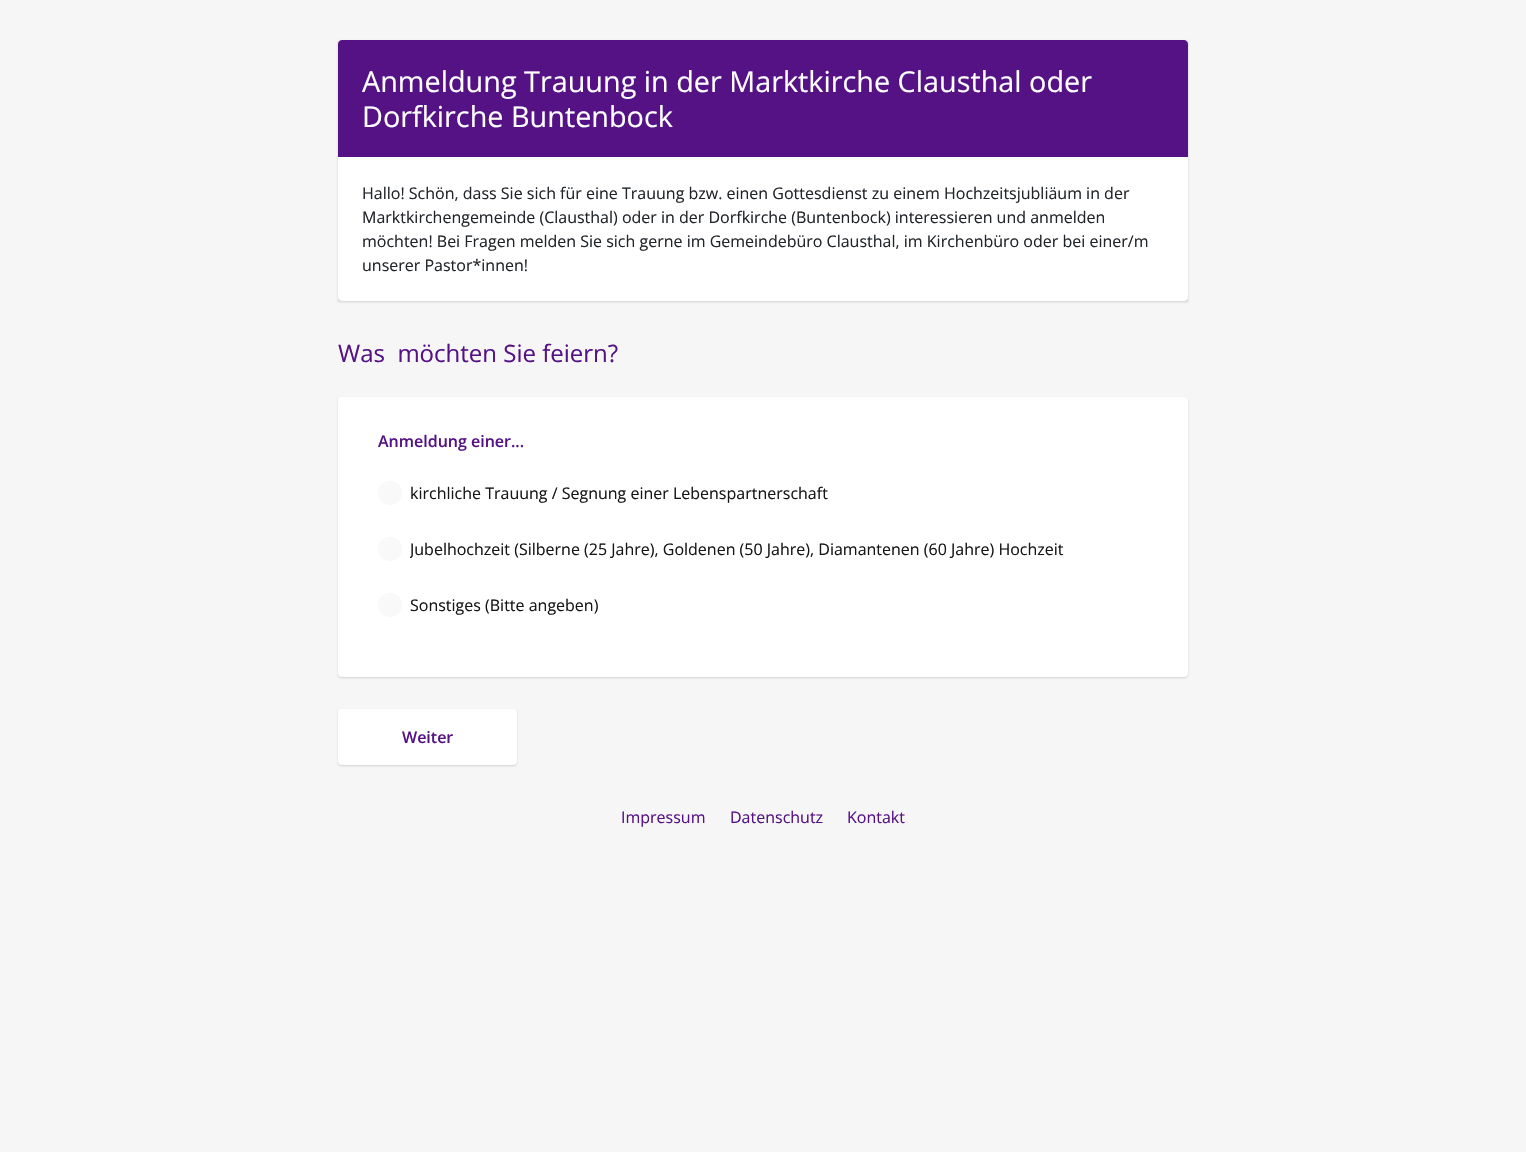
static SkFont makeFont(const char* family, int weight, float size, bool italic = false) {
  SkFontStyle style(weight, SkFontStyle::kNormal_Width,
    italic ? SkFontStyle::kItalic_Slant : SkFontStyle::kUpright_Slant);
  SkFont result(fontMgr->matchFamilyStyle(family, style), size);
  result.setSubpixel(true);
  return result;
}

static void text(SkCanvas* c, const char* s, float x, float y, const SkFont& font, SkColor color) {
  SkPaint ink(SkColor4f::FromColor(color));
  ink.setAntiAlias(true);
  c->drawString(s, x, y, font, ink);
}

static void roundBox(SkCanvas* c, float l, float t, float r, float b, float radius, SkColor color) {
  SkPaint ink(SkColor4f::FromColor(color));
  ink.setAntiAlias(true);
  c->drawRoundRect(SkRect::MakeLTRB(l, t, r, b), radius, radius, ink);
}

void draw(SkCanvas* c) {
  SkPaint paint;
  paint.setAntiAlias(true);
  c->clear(0xfff6f6f6);
  paint.setColor(0x26000000);
  paint.setMaskFilter(SkMaskFilter::MakeBlur(kNormal_SkBlurStyle, 1));
  c->drawRect(SkRect::MakeLTRB(338, 41, 1188, 302), paint);
  paint.setMaskFilter(nullptr);
  paint.setColor(0xff551285);
  c->drawPath(SkPathBuilder().moveTo(342, 40).lineTo(1184, 40).cubicTo(1186, 40, 1188, 42, 1188, 44).lineTo(1188, 157).lineTo(338, 157).lineTo(338, 44).cubicTo(338, 42, 340, 40, 342, 40).close().detach(), paint);
  SkFont face1 = makeFont("Open Sans", 400, 28.8f);
  text(c, "Anmeldung Trauung in der Marktkirche Clausthal oder", 362, 92, face1, 0xffffffff);
  text(c, "Dorfkirche Buntenbock", 362, 127, face1, 0xffffffff);
  paint.setColor(0xffffffff);
  c->drawPath(SkPathBuilder().moveTo(338, 157).lineTo(1188, 157).lineTo(1188, 297).cubicTo(1188, 299, 1186, 301, 1184, 301).lineTo(342, 301).cubicTo(340, 301, 338, 299, 338, 297).close().detach(), paint);
  SkFont face2 = makeFont("Open Sans", 400, 16);
  text(c, "Hallo! Schön, dass Sie sich für eine Trauung bzw. einen Gottesdienst zu einem Hochzeitsjubliäum in der", 362, 199, face2, 0xff212529);
  text(c, "Marktkirchengemeinde (Clausthal) oder in der Dorfkirche (Buntenbock) interessieren und anmelden", 362, 223, face2, 0xff212529);
  text(c, "möchten! Bei Fragen melden Sie sich gerne im Gemeindebüro Clausthal, im Kirchenbüro oder bei einer/m", 362, 247, face2, 0xff212529);
  text(c, "unserer Pastor*innen!", 362, 271, face2, 0xff212529);
  SkFont face3 = makeFont("Open Sans", 400, 24);
  text(c, "Was  möchten Sie feiern?", 338, 362, face3, 0xff551285);
  paint.setColor(0x26000000);
  paint.setMaskFilter(SkMaskFilter::MakeBlur(kNormal_SkBlurStyle, 1));
  c->drawRoundRect(SkRect::MakeLTRB(338, 398, 1188, 678), 4, 4, paint);
  paint.setMaskFilter(nullptr);
  roundBox(c, 338, 397, 1188, 677, 4, 0xffffffff);
  SkFont face4 = makeFont("Open Sans", 600, 16);
  text(c, "Anmeldung einer...", 378, 447, face4, 0xff551285);
  paint.setColor(0xfff9f9f9);
  c->drawCircle(390, 493, 12, paint);
  text(c, "kirchliche Trauung / Segnung einer Lebenspartnerschaft", 410, 499, face2, 0xff161616);
  c->drawCircle(390, 549, 12, paint);
  c->save();
  c->clipRect(SkRect::MakeLTRB(410, 537, 1064, 561));
  text(c, "Jubelhochzeit (Silberne (25 Jahre), Goldenen (50 Jahre), Diamantenen (60 Jahre) Hochzeit", 410, 555, face2, 0xff161616);
  c->restore();
  c->drawCircle(390, 605, 12, paint);
  text(c, "Sonstiges (Bitte angeben)", 410, 611, face2, 0xff161616);
  paint.setColor(0x26000000);
  paint.setMaskFilter(SkMaskFilter::MakeBlur(kNormal_SkBlurStyle, 1));
  c->drawRoundRect(SkRect::MakeLTRB(338, 710, 517, 766), 4, 4, paint);
  paint.setMaskFilter(nullptr);
  roundBox(c, 338, 709, 517, 765, 4, 0xffffffff);
  text(c, "Weiter", 402, 743, face4, 0xff551285);
  text(c, "Impressum", 621, 823, face2, 0xff551285);
  text(c, "Datenschutz", 730, 823, face2, 0xff551285);
  text(c, "Kontakt", 847, 823, face2, 0xff551285);
}
